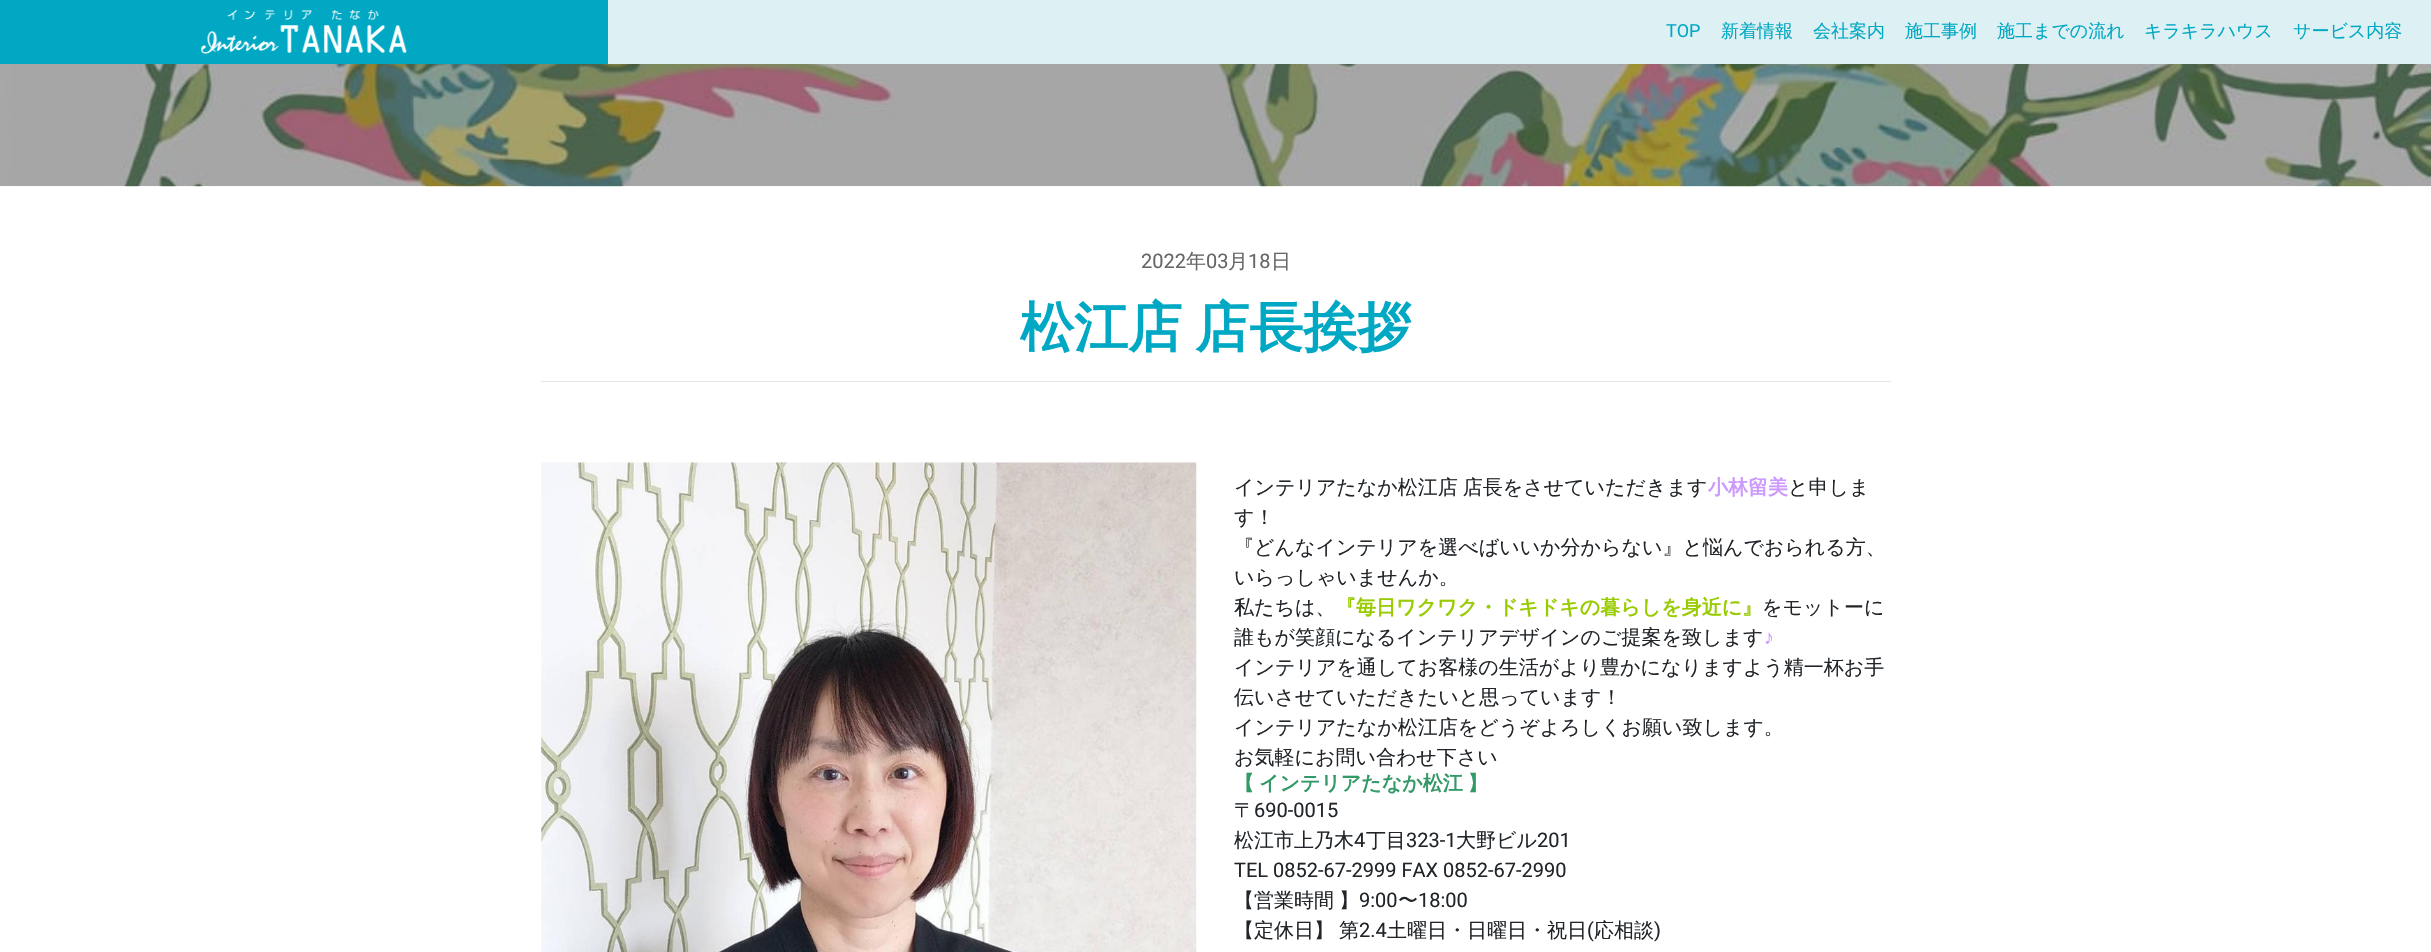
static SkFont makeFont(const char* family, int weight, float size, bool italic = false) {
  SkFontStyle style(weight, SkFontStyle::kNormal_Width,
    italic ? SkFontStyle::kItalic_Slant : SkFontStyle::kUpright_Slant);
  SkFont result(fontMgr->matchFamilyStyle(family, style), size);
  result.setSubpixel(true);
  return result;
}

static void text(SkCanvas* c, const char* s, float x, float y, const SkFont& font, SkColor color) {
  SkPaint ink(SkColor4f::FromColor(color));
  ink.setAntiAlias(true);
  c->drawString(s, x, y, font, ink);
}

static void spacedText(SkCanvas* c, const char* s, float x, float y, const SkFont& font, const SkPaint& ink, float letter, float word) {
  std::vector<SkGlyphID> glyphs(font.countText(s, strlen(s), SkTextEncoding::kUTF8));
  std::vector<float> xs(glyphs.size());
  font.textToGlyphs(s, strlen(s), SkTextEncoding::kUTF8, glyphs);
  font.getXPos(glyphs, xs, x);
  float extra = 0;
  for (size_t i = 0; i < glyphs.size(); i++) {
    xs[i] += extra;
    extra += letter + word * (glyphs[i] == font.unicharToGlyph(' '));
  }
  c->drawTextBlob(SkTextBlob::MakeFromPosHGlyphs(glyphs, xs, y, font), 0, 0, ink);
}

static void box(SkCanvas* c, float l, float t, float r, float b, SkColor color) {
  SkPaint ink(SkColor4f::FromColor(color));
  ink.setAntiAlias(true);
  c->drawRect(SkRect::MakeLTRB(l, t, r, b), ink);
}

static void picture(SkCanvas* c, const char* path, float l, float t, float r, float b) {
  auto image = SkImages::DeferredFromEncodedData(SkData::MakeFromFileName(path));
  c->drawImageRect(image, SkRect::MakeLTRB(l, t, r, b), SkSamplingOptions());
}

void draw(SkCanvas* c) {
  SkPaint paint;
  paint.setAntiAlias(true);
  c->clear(0xffffffff);
  box(c, 0, 0, 608, 64, 0xff00a8c3);
  picture(c, "img_01.png", 201, 10, 407, 54);
  box(c, 608, 0, 2431, 64, 0xffddf0f3);
  SkFont face1 = makeFont("Roboto", 400, 18);
  text(c, "TOP", 1666, 37, face1, 0xff00a8c3);
  SkFont face2 = makeFont("WenQuanYi Zen Hei", 500, 18);
  text(c, "新着情報", 1721, 37, face2, 0xff00a8c3);
  text(c, "会社案内", 1813, 37, face2, 0xff00a8c3);
  text(c, "施工事例", 1905, 37, face2, 0xff00a8c3);
  text(c, "施工までの流れ", 1997, 37, face2, 0xff00a8c3);
  text(c, "キラキラハウス", 2144, 37, face2, 0xff00a8c3);
  text(c, "サービス内容", 2293, 37, face2, 0xff00a8c3);
  picture(c, "img_02.png", 0, 64, 2431, 187);
  SkFont face3 = makeFont("Roboto", 400, 20);
  text(c, "2022", 1141, 268, face3, 0xff666666);
  SkFont face4 = makeFont("WenQuanYi Zen Hei", 500, 20);
  text(c, "年", 1186, 268, face4, 0xff666666);
  text(c, "03", 1206, 268, face3, 0xff666666);
  text(c, "月", 1228, 268, face4, 0xff666666);
  text(c, "18", 1248, 268, face3, 0xff666666);
  text(c, "日", 1271, 268, face4, 0xff666666);
  SkFont face5 = makeFont("WenQuanYi Zen Hei", 700, 54);
  paint.setColor(0xff00a8c3);
  spacedText(c, "松江店 店長挨拶", 1020, 346, face5, paint, 0, -3);
  box(c, 541, 381, 1891, 382, 0xffe6e6e6);
  picture(c, "img_03.png", 541, 462, 1197, 952);
  paint.setColor(0xff212529);
  spacedText(c, "インテリアたなか松江店 店長をさせていただきます", 1234, 494, face4, paint, 0, -1);
  SkFont face6 = makeFont("WenQuanYi Zen Hei", 700, 20);
  text(c, "小林留美", 1708, 494, face6, 0xffcc99ff);
  text(c, "と申しま", 1788, 494, face4, 0xff212529);
  text(c, "す！", 1234, 524, face4, 0xff212529);
  text(c, "『どんなインテリアを選べばいいか分からない』と悩んでおられる方、", 1234, 554, face4, 0xff212529);
  text(c, "いらっしゃいませんか。", 1234, 584, face4, 0xff212529);
  text(c, "私たちは、", 1234, 614, face4, 0xff212529);
  text(c, "『毎日ワクワク・ドキドキの暮らしを身近に』", 1336, 614, face6, 0xff99cc00);
  text(c, "をモットーに", 1762, 614, face4, 0xff212529);
  text(c, "誰もが笑顔になるインテリアデザインのご提案を致します", 1234, 644, face4, 0xff212529);
  SkFont face7 = makeFont("Liberation Sans", 400, 20);
  text(c, "♪", 1764, 644, face7, 0xffcc99ff);
  text(c, "インテリアを通してお客様の生活がより豊かになりますよう精一杯お手", 1234, 674, face4, 0xff212529);
  text(c, "伝いさせていただきたいと思っています！", 1234, 704, face4, 0xff212529);
  text(c, "インテリアたなか松江店をどうぞよろしくお願い致します。", 1234, 734, face4, 0xff212529);
  text(c, "お気軽にお問い合わせ下さい", 1234, 764, face4, 0xff212529);
  paint.setColor(0xff339966);
  spacedText(c, "【 インテリアたなか松江 】", 1234, 790, face6, paint, 0, -1);
  text(c, "〒", 1234, 817, face4, 0xff212529);
  text(c, "690-0015", 1254, 817, face3, 0xff212529);
  text(c, "松江市上乃木", 1234, 847, face4, 0xff212529);
  text(c, "4", 1354, 847, face3, 0xff212529);
  text(c, "丁目", 1366, 847, face4, 0xff212529);
  text(c, "323-1", 1406, 847, face3, 0xff212529);
  text(c, "大野ビル", 1456, 847, face4, 0xff212529);
  text(c, "201", 1537, 847, face3, 0xff212529);
  text(c, "TEL 0852-67-2999 FAX 0852-67-2990", 1234, 877, face3, 0xff212529);
  paint.setColor(0xff212529);
  spacedText(c, "【営業時間 】", 1234, 907, face4, paint, 0, -1);
  text(c, "9:00", 1359, 907, face3, 0xff212529);
  text(c, "〜", 1398, 907, face4, 0xff212529);
  text(c, "18:00", 1418, 907, face3, 0xff212529);
  spacedText(c, "【定休日】 第", 1234, 937, face4, paint, 0, -1);
  text(c, "2.4", 1359, 937, face3, 0xff212529);
  text(c, "土曜日・日曜日・祝日", 1387, 937, face4, 0xff212529);
  text(c, "(", 1587, 937, face3, 0xff212529);
  text(c, "応相談", 1594, 937, face4, 0xff212529);
  text(c, ")", 1654, 937, face3, 0xff212529);
}
